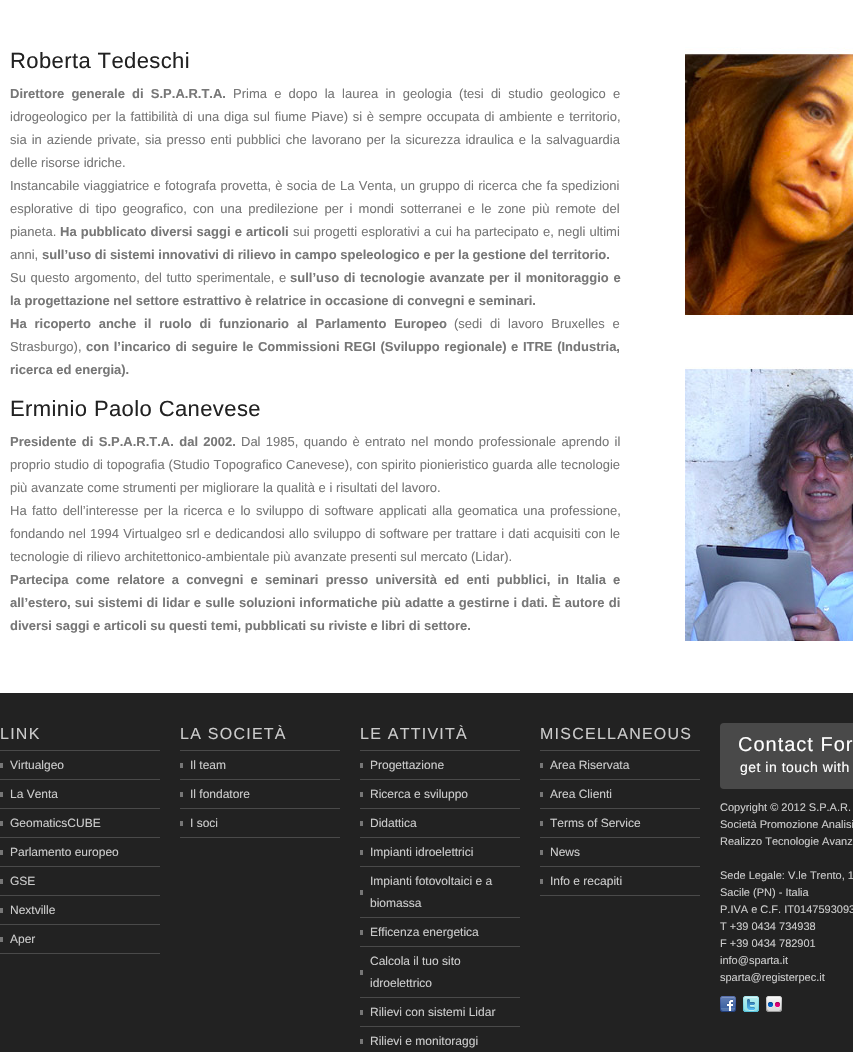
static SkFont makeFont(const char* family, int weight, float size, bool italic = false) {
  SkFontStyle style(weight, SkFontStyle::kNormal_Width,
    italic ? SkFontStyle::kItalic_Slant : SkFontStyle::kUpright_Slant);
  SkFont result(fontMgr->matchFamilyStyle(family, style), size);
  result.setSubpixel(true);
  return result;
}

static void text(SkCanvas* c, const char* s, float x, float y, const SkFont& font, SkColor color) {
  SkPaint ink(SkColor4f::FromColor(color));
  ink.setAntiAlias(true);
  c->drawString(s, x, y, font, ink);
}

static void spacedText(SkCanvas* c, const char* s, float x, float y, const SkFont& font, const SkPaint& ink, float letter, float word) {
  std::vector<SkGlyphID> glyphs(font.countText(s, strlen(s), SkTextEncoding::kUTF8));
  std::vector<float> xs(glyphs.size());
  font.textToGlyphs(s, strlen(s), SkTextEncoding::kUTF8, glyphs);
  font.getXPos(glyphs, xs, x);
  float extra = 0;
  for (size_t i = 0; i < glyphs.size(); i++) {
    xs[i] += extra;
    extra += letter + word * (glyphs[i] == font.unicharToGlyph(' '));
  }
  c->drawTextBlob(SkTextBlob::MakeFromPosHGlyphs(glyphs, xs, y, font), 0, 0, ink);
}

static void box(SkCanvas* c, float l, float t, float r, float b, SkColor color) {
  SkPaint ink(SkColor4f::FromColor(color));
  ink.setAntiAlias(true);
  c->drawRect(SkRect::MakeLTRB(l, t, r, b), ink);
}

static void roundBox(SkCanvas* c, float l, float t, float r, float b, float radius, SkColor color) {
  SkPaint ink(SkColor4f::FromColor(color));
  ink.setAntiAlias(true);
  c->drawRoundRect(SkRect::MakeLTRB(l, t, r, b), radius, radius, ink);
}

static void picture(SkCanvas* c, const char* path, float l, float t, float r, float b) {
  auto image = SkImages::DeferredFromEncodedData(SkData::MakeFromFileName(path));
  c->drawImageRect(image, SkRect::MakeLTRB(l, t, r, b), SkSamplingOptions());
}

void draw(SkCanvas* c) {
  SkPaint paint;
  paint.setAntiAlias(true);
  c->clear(0xff222222);
  box(c, 0, 0, 853, 693, 0xffffffff);
  SkFont face1 = makeFont("Liberation Sans", 400, 22);
  paint.setColor(0xff222222);
  spacedText(c, "Roberta Tedeschi", 10, 68, face1, paint, 0.4f, 0);
  SkFont face2 = makeFont("Liberation Sans", 700, 13);
  paint.setColor(0xff777777);
  spacedText(c, "Direttore generale di S.P.A.R.T.A.", 10, 98, face2, paint, 0, 3.6f);
  SkFont face3 = makeFont("Liberation Sans", 400, 13);
  spacedText(c, "Prima e dopo la laurea in geologia (tesi di studio geologico e", 233, 98, face3, paint, 0, 3.6f);
  spacedText(c, "idrogeologico per la fattibilità di una diga sul fiume Piave) si è sempre occupata di ambiente e territorio,", 10, 121, face3, paint, 0, 1.1f);
  spacedText(c, "sia in aziende private, sia presso enti pubblici che lavorano per la sicurezza idraulica e la salvaguardia", 10, 144, face3, paint, 0, 1.4f);
  text(c, "delle risorse idriche.", 10, 167, face3, 0xff777777);
  spacedText(c, "Instancabile viaggiatrice e fotografa provetta, è socia de La Venta, un gruppo di ricerca che fa spedizioni", 10, 190, face3, paint, 0, 0.6f);
  spacedText(c, "esplorative di tipo geografico, con una predilezione per i mondi sotterranei e le zone più remote del", 10, 213, face3, paint, 0, 2.6f);
  text(c, "pianeta.", 10, 236, face3, 0xff777777);
  spacedText(c, "Ha pubblicato diversi saggi e articoli", 60, 236, face2, paint, 0, 0.5f);
  spacedText(c, "sui progetti esplorativi a cui ha partecipato e, negli ultimi", 293, 236, face3, paint, 0, 0.5f);
  text(c, "anni,", 10, 259, face3, 0xff777777);
  text(c, "sull’uso di sistemi innovativi di rilievo in campo speleologico e per la gestione del territorio.", 42, 259, face2, 0xff777777);
  spacedText(c, "Su questo argomento, del tutto sperimentale, e", 10, 282, face3, paint, 0, 1);
  spacedText(c, "sull’uso di tecnologie avanzate per il monitoraggio e", 290, 282, face2, paint, 0, 1);
  text(c, "la progettazione nel settore estrattivo è relatrice in occasione di convegni e seminari.", 10, 305, face2, 0xff777777);
  spacedText(c, "Ha ricoperto anche il ruolo di funzionario al Parlamento Europeo", 10, 328, face2, paint, 0, 4.25f);
  spacedText(c, "(sedi di lavoro Bruxelles e", 454, 328, face3, paint, 0, 4.25f);
  text(c, "Strasburgo),", 10, 351, face3, 0xff777777);
  spacedText(c, "con l’incarico di seguire le Commissioni REGI (Sviluppo regionale) e ITRE (Industria,", 86, 351, face2, paint, 0, 1);
  text(c, "ricerca ed energia).", 10, 374, face2, 0xff777777);
  paint.setColor(0xff222222);
  spacedText(c, "Erminio Paolo Canevese", 10, 416, face1, paint, 0.4f, 0);
  paint.setColor(0xff777777);
  spacedText(c, "Presidente di S.P.A.R.T.A. dal 2002.", 10, 446, face2, paint, 0, 1.75f);
  spacedText(c, "Dal 1985, quando è entrato nel mondo professionale aprendo il", 241, 446, face3, paint, 0, 1.75f);
  spacedText(c, "proprio studio di topografia (Studio Topografico Canevese), con spirito pionieristico guarda alle tecnologie", 10, 469, face3, paint, 0, 0.25f);
  text(c, "più avanzate come strumenti per migliorare la qualità e i risultati del lavoro.", 10, 492, face3, 0xff777777);
  spacedText(c, "Ha fatto dell’interesse per la ricerca e lo sviluppo di software applicati alla geomatica una professione,", 10, 515, face3, paint, 0, 1.75f);
  spacedText(c, "fondando nel 1994 Virtualgeo srl e dedicandosi allo sviluppo di software per trattare i dati acquisiti con le", 10, 538, face3, paint, 0, 0.6f);
  text(c, "tecnologie di rilievo architettonico-ambientale più avanzate presenti sul mercato (Lidar).", 10, 561, face3, 0xff777777);
  spacedText(c, "Partecipa come relatore a convegni e seminari presso università ed enti pubblici, in Italia e", 10, 584, face2, paint, 0, 3.6f);
  spacedText(c, "all’estero, sui sistemi di lidar e sulle soluzioni informatiche più adatte a gestirne i dati. È autore di", 10, 607, face2, paint, 0, 0.5f);
  text(c, "diversi saggi e articoli su questi temi, pubblicati su riviste e libri di settore.", 10, 630, face2, 0xff777777);
  picture(c, "img_01.png", 685, 47, 853, 641);
  SkFont face4 = makeFont("Liberation Sans", 400, 16);
  paint.setColor(0xffcbcbcb);
  spacedText(c, "LINK", 0, 739, face4, paint, 1.25f, 0);
  box(c, 0, 750, 160, 751, 0xff4a4a4a);
  box(c, 0, 763, 3, 768, 0xff777777);
  box(c, 0, 779, 160, 780, 0xff4a4a4a);
  SkFont face5 = makeFont("Liberation Sans", 400, 12);
  text(c, "Virtualgeo", 10, 769, face5, 0xffcbcbcb);
  box(c, 0, 792, 3, 797, 0xff777777);
  box(c, 0, 808, 160, 809, 0xff4a4a4a);
  text(c, "La Venta", 10, 798, face5, 0xffcbcbcb);
  box(c, 0, 821, 3, 826, 0xff777777);
  box(c, 0, 837, 160, 838, 0xff4a4a4a);
  text(c, "GeomaticsCUBE", 10, 827, face5, 0xffcbcbcb);
  box(c, 0, 850, 3, 855, 0xff777777);
  box(c, 0, 866, 160, 867, 0xff4a4a4a);
  text(c, "Parlamento europeo", 10, 856, face5, 0xffcbcbcb);
  box(c, 0, 879, 3, 884, 0xff777777);
  box(c, 0, 895, 160, 896, 0xff4a4a4a);
  text(c, "GSE", 10, 885, face5, 0xffcbcbcb);
  box(c, 0, 908, 3, 913, 0xff777777);
  box(c, 0, 924, 160, 925, 0xff4a4a4a);
  text(c, "Nextville", 10, 914, face5, 0xffcbcbcb);
  box(c, 0, 937, 3, 942, 0xff777777);
  box(c, 0, 953, 160, 954, 0xff4a4a4a);
  text(c, "Aper", 10, 943, face5, 0xffcbcbcb);
  spacedText(c, "LA SOCIETÀ", 180, 739, face4, paint, 1.25f, 0);
  box(c, 180, 750, 340, 751, 0xff4a4a4a);
  box(c, 180, 763, 183, 768, 0xff777777);
  box(c, 180, 779, 340, 780, 0xff4a4a4a);
  text(c, "Il team", 190, 769, face5, 0xffcbcbcb);
  box(c, 180, 792, 183, 797, 0xff777777);
  box(c, 180, 808, 340, 809, 0xff4a4a4a);
  text(c, "Il fondatore", 190, 798, face5, 0xffcbcbcb);
  box(c, 180, 821, 183, 826, 0xff777777);
  box(c, 180, 837, 340, 838, 0xff4a4a4a);
  text(c, "I soci", 190, 827, face5, 0xffcbcbcb);
  spacedText(c, "LE ATTIVITÀ", 360, 739, face4, paint, 1.25f, 0);
  box(c, 360, 750, 520, 751, 0xff4a4a4a);
  box(c, 360, 763, 363, 768, 0xff777777);
  box(c, 360, 779, 520, 780, 0xff4a4a4a);
  text(c, "Progettazione", 370, 769, face5, 0xffcbcbcb);
  box(c, 360, 792, 363, 797, 0xff777777);
  box(c, 360, 808, 520, 809, 0xff4a4a4a);
  text(c, "Ricerca e sviluppo", 370, 798, face5, 0xffcbcbcb);
  box(c, 360, 821, 363, 826, 0xff777777);
  box(c, 360, 837, 520, 838, 0xff4a4a4a);
  text(c, "Didattica", 370, 827, face5, 0xffcbcbcb);
  box(c, 360, 850, 363, 855, 0xff777777);
  box(c, 360, 866, 520, 867, 0xff4a4a4a);
  text(c, "Impianti idroelettrici", 370, 856, face5, 0xffcbcbcb);
  box(c, 360, 890, 363, 895, 0xff777777);
  box(c, 360, 917, 520, 918, 0xff4a4a4a);
  text(c, "Impianti fotovoltaici e a", 370, 885, face5, 0xffcbcbcb);
  text(c, "biomassa", 370, 907, face5, 0xffcbcbcb);
  box(c, 360, 930, 363, 935, 0xff777777);
  box(c, 360, 946, 520, 947, 0xff4a4a4a);
  text(c, "Efficenza energetica", 370, 936, face5, 0xffcbcbcb);
  box(c, 360, 970, 363, 975, 0xff777777);
  box(c, 360, 997, 520, 998, 0xff4a4a4a);
  text(c, "Calcola il tuo sito", 370, 965, face5, 0xffcbcbcb);
  text(c, "idroelettrico", 370, 987, face5, 0xffcbcbcb);
  box(c, 360, 1010, 363, 1015, 0xff777777);
  box(c, 360, 1026, 520, 1027, 0xff4a4a4a);
  text(c, "Rilievi con sistemi Lidar", 370, 1016, face5, 0xffcbcbcb);
  box(c, 360, 1039, 363, 1044, 0xff777777);
  text(c, "Rilievi e monitoraggi", 370, 1045, face5, 0xffcbcbcb);
  spacedText(c, "MISCELLANEOUS", 540, 739, face4, paint, 1.25f, 0);
  box(c, 540, 750, 700, 751, 0xff4a4a4a);
  box(c, 540, 763, 543, 768, 0xff777777);
  box(c, 540, 779, 700, 780, 0xff4a4a4a);
  text(c, "Area Riservata", 550, 769, face5, 0xffcbcbcb);
  box(c, 540, 792, 543, 797, 0xff777777);
  box(c, 540, 808, 700, 809, 0xff4a4a4a);
  text(c, "Area Clienti", 550, 798, face5, 0xffcbcbcb);
  box(c, 540, 821, 543, 826, 0xff777777);
  box(c, 540, 837, 700, 838, 0xff4a4a4a);
  text(c, "Terms of Service", 550, 827, face5, 0xffcbcbcb);
  box(c, 540, 850, 543, 855, 0xff777777);
  box(c, 540, 866, 700, 867, 0xff4a4a4a);
  text(c, "News", 550, 856, face5, 0xffcbcbcb);
  box(c, 540, 879, 543, 884, 0xff777777);
  box(c, 540, 895, 700, 896, 0xff4a4a4a);
  text(c, "Info e recapiti", 550, 885, face5, 0xffcbcbcb);
  roundBox(c, 720, 723, 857, 789, 4, 0xff494949);
  SkFont face6 = makeFont("Liberation Sans", 400, 20);
  paint.setColor(0xffffffff);
  spacedText(c, "Contact For", 738, 751, face6, paint, 1, 0);
  SkFont face7 = makeFont("Liberation Sans", 400, 14);
  spacedText(c, "get in touch with", 740, 772, face7, paint, 0.5f, 0);
  SkFont face8 = makeFont("Liberation Sans", 400, 11);
  text(c, "Copyright © 2012 S.P.A.R.", 720, 811, face8, 0xffcbcbcb);
  text(c, "Società Promozione Analisi", 720, 828, face8, 0xffcbcbcb);
  text(c, "Realizzo Tecnologie Avanz", 720, 845, face8, 0xffcbcbcb);
  text(c, "Sede Legale: V.le Trento, 1", 720, 879, face8, 0xffcbcbcb);
  text(c, "Sacile (PN) - Italia", 720, 896, face8, 0xffcbcbcb);
  text(c, "P.IVA e C.F. IT0147593093", 720, 913, face8, 0xffcbcbcb);
  text(c, "T +39 0434 734938", 720, 930, face8, 0xffcbcbcb);
  text(c, "F +39 0434 782901", 720, 947, face8, 0xffcbcbcb);
  text(c, "info@sparta.it", 720, 964, face8, 0xffcbcbcb);
  text(c, "sparta@registerpec.it", 720, 981, face8, 0xffcbcbcb);
  picture(c, "img_02.png", 720, 996, 736, 1012);
  picture(c, "img_03.png", 743, 996, 759, 1012);
  picture(c, "img_04.png", 766, 996, 782, 1012);
}
